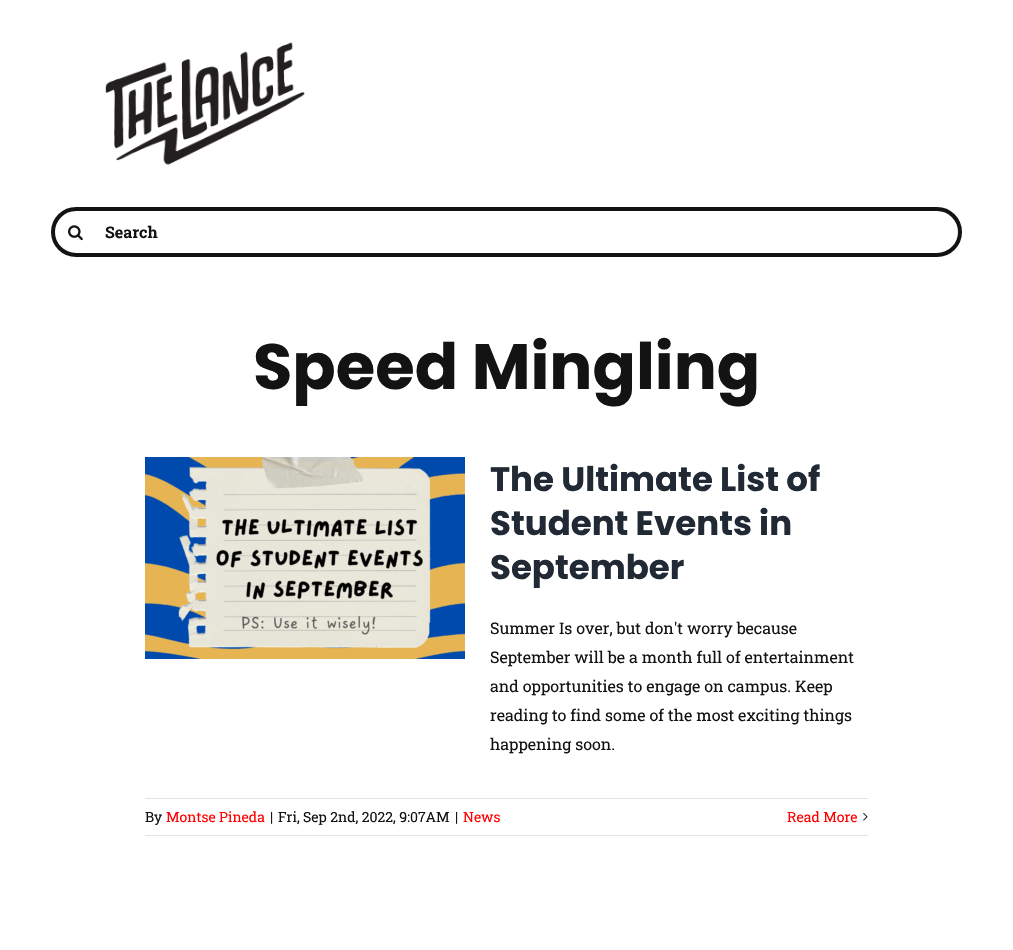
static SkFont makeFont(const char* family, int weight, float size, bool italic = false) {
  SkFontStyle style(weight, SkFontStyle::kNormal_Width,
    italic ? SkFontStyle::kItalic_Slant : SkFontStyle::kUpright_Slant);
  SkFont result(fontMgr->matchFamilyStyle(family, style), size);
  result.setSubpixel(true);
  return result;
}

static void text(SkCanvas* c, const char* s, float x, float y, const SkFont& font, SkColor color) {
  SkPaint ink(SkColor4f::FromColor(color));
  ink.setAntiAlias(true);
  c->drawString(s, x, y, font, ink);
}

static void box(SkCanvas* c, float l, float t, float r, float b, SkColor color) {
  SkPaint ink(SkColor4f::FromColor(color));
  ink.setAntiAlias(true);
  c->drawRect(SkRect::MakeLTRB(l, t, r, b), ink);
}

static void picture(SkCanvas* c, const char* path, float l, float t, float r, float b) {
  auto image = SkImages::DeferredFromEncodedData(SkData::MakeFromFileName(path));
  c->drawImageRect(image, SkRect::MakeLTRB(l, t, r, b), SkSamplingOptions());
}

void draw(SkCanvas* c) {
  SkPaint paint;
  paint.setAntiAlias(true);
  c->clear(0xffffffff);
  picture(c, "img_01.png", 105, 42, 305, 165);
  paint.setStyle(SkPaint::kStroke_Style);
  paint.setStrokeWidth(4);
  paint.setColor(0xff131313);
  c->drawRoundRect(SkRect::MakeLTRB(53, 209, 960, 255), 23, 23, paint);
  picture(c, "img_02.png", 68, 225, 83, 241);
  SkFont face1 = makeFont("Roboto Slab", 700, 16);
  text(c, "Search", 105, 238, face1, 0xff131313);
  SkFont face2 = makeFont("Poppins", 700, 64);
  text(c, "Speed Mingling", 253, 389, face2, 0xff131313);
  picture(c, "img_03.png", 145, 457, 465, 659);
  SkFont face3 = makeFont("Poppins", 700, 34);
  text(c, "The Ultimate List of", 490, 491, face3, 0xff212934);
  text(c, "Student Events in", 490, 535, face3, 0xff212934);
  text(c, "September", 490, 579, face3, 0xff212934);
  SkFont face4 = makeFont("Roboto Slab", 400, 16);
  text(c, "Summer Is over, but don't worry because", 490, 634, face4, 0xff131313);
  text(c, "September will be a month full of entertainment", 490, 663, face4, 0xff131313);
  text(c, "and opportunities to engage on campus. Keep", 490, 692, face4, 0xff131313);
  text(c, "reading to find some of the most exciting things", 490, 721, face4, 0xff131313);
  text(c, "happening soon.", 490, 750, face4, 0xff131313);
  box(c, 145, 798, 868, 799, 0xffe2e2e2);
  box(c, 145, 835, 868, 836, 0xffe2e2e2);
  SkFont face5 = makeFont("Roboto Slab", 400, 14);
  text(c, "By", 145, 822, face5, 0xff131313);
  text(c, "Montse Pineda", 166, 822, face5, 0xffff0000);
  text(c, "|", 270, 822, face5, 0xff131313);
  text(c, "Fri, Sep 2nd, 2022, 9:07AM", 278, 822, face5, 0xff131313);
  text(c, "|", 455, 822, face5, 0xff131313);
  text(c, "News", 463, 822, face5, 0xffff0000);
  text(c, "Read More", 787, 822, face5, 0xffff0000);
  picture(c, "img_04.png", 863, 812, 868, 821);
}
